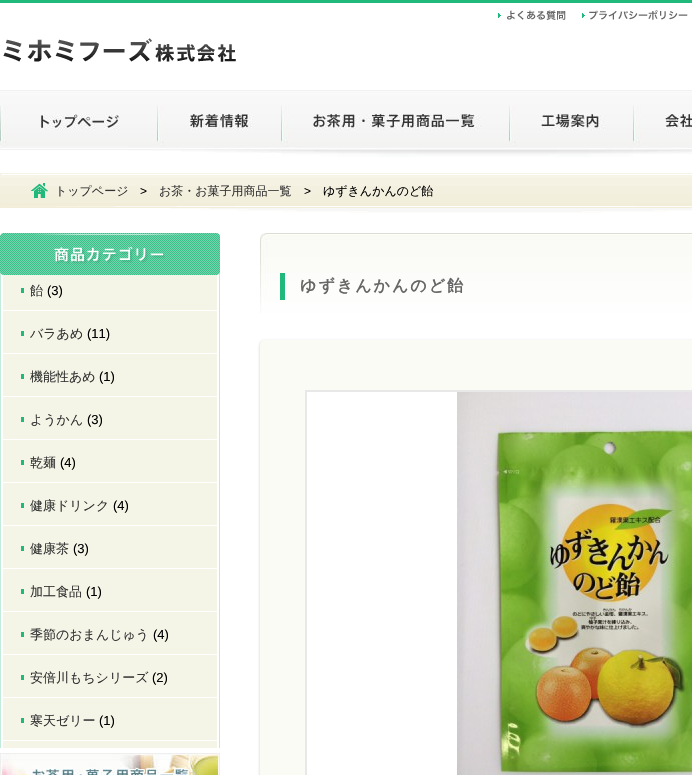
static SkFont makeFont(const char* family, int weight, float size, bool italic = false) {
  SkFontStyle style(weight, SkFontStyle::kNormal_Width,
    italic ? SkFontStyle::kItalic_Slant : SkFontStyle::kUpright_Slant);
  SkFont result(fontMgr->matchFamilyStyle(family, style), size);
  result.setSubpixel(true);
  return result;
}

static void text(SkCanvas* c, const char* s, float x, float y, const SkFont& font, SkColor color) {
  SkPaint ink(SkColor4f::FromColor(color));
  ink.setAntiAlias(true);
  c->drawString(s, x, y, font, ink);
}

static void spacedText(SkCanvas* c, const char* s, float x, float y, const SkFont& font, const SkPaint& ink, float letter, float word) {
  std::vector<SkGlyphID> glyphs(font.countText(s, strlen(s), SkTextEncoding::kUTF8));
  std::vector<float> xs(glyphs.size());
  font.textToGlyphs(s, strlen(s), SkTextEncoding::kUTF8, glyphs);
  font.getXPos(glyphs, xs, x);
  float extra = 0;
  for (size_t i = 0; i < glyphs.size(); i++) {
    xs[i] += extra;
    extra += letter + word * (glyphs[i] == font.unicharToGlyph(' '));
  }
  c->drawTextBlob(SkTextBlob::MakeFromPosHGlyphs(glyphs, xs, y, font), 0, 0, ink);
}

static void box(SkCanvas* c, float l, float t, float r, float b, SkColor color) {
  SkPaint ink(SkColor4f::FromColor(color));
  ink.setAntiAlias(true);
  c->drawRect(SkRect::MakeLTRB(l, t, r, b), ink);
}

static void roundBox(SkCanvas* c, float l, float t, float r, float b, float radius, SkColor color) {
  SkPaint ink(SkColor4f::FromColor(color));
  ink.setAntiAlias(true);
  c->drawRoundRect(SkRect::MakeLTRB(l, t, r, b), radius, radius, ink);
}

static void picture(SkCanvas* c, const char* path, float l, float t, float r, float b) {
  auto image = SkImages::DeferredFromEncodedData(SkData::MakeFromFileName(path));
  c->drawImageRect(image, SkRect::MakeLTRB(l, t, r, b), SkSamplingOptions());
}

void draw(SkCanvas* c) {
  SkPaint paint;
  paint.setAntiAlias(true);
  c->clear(0xffffffff);
  picture(c, "img_01.png", 0, 90, 692, 106);
  box(c, 0, 0, 692, 3, 0xff20b97b);
  picture(c, "img_02.png", 498, 10, 566, 20);
  picture(c, "img_03.png", 582, 10, 688, 20);
  picture(c, "img_04.png", 3, 38, 236, 62);
  picture(c, "img_05.png", 0, 106, 157, 151);
  picture(c, "img_06.png", 157, 106, 281, 153);
  picture(c, "img_07.png", 281, 106, 509, 157);
  picture(c, "img_08.png", 509, 106, 633, 157);
  picture(c, "img_09.png", 633, 106, 692, 154);
  picture(c, "img_10.png", 0, 173, 692, 213);
  SkFont face1 = makeFont("WenQuanYi Zen Hei", 500, 12);
  text(c, "トップページ", 55, 195, face1, 0xff333333);
  SkFont face2 = makeFont("Liberation Sans", 400, 12);
  text(c, ">", 140, 195, face2, 0xff000000);
  text(c, "お茶・お菓子用商品一覧", 159, 195, face1, 0xff333333);
  text(c, ">", 304, 195, face2, 0xff000000);
  text(c, "ゆずきんかんのど飴", 323, 195, face1, 0xff000000);
  picture(c, "img_11.png", 0, 233, 220, 275);
  picture(c, "img_12.png", 0, 275, 220, 318);
  SkFont face3 = makeFont("WenQuanYi Zen Hei", 500, 13);
  text(c, "飴", 30, 295, face3, 0xff333333);
  box(c, 21, 288, 24, 293, 0xff20b97b);
  SkFont face4 = makeFont("Liberation Sans", 400, 13);
  text(c, "(3)", 47, 295, face4, 0xff000000);
  picture(c, "img_12.png", 0, 318, 220, 361);
  text(c, "バラあめ", 30, 338, face3, 0xff333333);
  box(c, 21, 331, 24, 336, 0xff20b97b);
  text(c, "(11)", 87, 338, face4, 0xff000000);
  picture(c, "img_12.png", 0, 361, 220, 404);
  text(c, "機能性あめ", 30, 381, face3, 0xff333333);
  box(c, 21, 374, 24, 379, 0xff20b97b);
  text(c, "(1)", 99, 381, face4, 0xff000000);
  picture(c, "img_12.png", 0, 404, 220, 447);
  text(c, "ようかん", 30, 424, face3, 0xff333333);
  box(c, 21, 417, 24, 422, 0xff20b97b);
  text(c, "(3)", 87, 424, face4, 0xff000000);
  picture(c, "img_12.png", 0, 447, 220, 490);
  text(c, "乾麺", 30, 467, face3, 0xff333333);
  box(c, 21, 460, 24, 465, 0xff20b97b);
  text(c, "(4)", 60, 467, face4, 0xff000000);
  picture(c, "img_12.png", 0, 490, 220, 533);
  text(c, "健康ドリンク", 30, 510, face3, 0xff333333);
  box(c, 21, 503, 24, 508, 0xff20b97b);
  text(c, "(4)", 113, 510, face4, 0xff000000);
  picture(c, "img_12.png", 0, 533, 220, 576);
  text(c, "健康茶", 30, 553, face3, 0xff333333);
  box(c, 21, 546, 24, 551, 0xff20b97b);
  text(c, "(3)", 73, 553, face4, 0xff000000);
  picture(c, "img_12.png", 0, 576, 220, 619);
  text(c, "加工食品", 30, 596, face3, 0xff333333);
  box(c, 21, 589, 24, 594, 0xff20b97b);
  text(c, "(1)", 86, 596, face4, 0xff000000);
  picture(c, "img_12.png", 0, 619, 220, 662);
  text(c, "季節のおまんじゅう", 30, 639, face3, 0xff333333);
  box(c, 21, 632, 24, 637, 0xff20b97b);
  text(c, "(4)", 153, 639, face4, 0xff000000);
  picture(c, "img_12.png", 0, 662, 220, 705);
  text(c, "安倍川もちシリーズ", 30, 682, face3, 0xff333333);
  box(c, 21, 675, 24, 680, 0xff20b97b);
  text(c, "(2)", 152, 682, face4, 0xff000000);
  picture(c, "img_12.png", 0, 705, 220, 748);
  text(c, "寒天ゼリー", 30, 725, face3, 0xff333333);
  box(c, 21, 718, 24, 723, 0xff20b97b);
  text(c, "(1)", 99, 725, face4, 0xff000000);
  picture(c, "img_13.png", 0, 753, 220, 775);
  picture(c, "img_14.png", 260, 233, 692, 313);
  box(c, 280, 273, 285, 300, 0xff20b97b);
  SkFont face5 = makeFont("WenQuanYi Zen Hei", 700, 16);
  paint.setColor(0xff666666);
  spacedText(c, "ゆずきんかんのど飴", 300, 291, face5, paint, 2, 0);
  paint.setColor(0x33000000);
  paint.setMaskFilter(SkMaskFilter::MakeBlur(kNormal_SkBlurStyle, 1.5f));
  c->drawRoundRect(SkRect::MakeLTRB(260, 341, 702, 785), 5, 5, paint);
  paint.setMaskFilter(nullptr);
  roundBox(c, 260, 340, 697, 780, 5, 0xfffbfbf5);
  box(c, 307, 392, 457, 775, 0xffffffff);
  paint.setStyle(SkPaint::kStroke_Style);
  paint.setStrokeWidth(2);
  paint.setColor(0xffe8e8e8);
  c->drawRect(SkRect::MakeLTRB(306, 391, 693, 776), paint);
  picture(c, "img_15.png", 457, 392, 692, 775);
}
